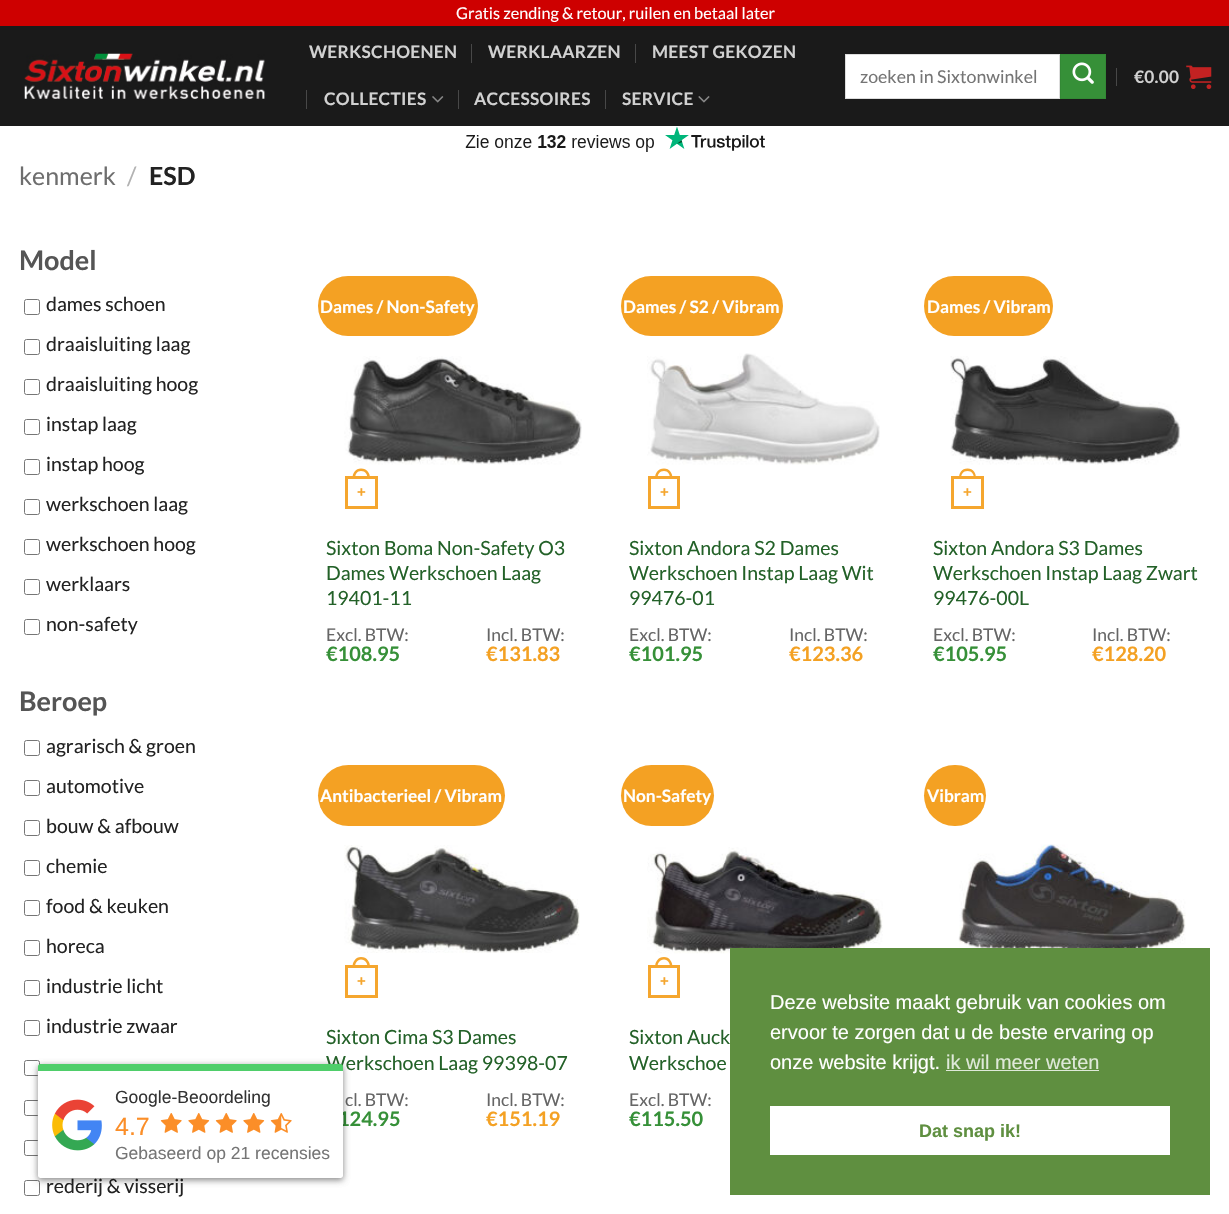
static SkFont makeFont(const char* family, int weight, float size, bool italic = false) {
  SkFontStyle style(weight, SkFontStyle::kNormal_Width,
    italic ? SkFontStyle::kItalic_Slant : SkFontStyle::kUpright_Slant);
  SkFont result(fontMgr->matchFamilyStyle(family, style), size);
  result.setSubpixel(true);
  return result;
}

static void text(SkCanvas* c, const char* s, float x, float y, const SkFont& font, SkColor color) {
  SkPaint ink(SkColor4f::FromColor(color));
  ink.setAntiAlias(true);
  c->drawString(s, x, y, font, ink);
}

static void spacedText(SkCanvas* c, const char* s, float x, float y, const SkFont& font, const SkPaint& ink, float letter, float word) {
  std::vector<SkGlyphID> glyphs(font.countText(s, strlen(s), SkTextEncoding::kUTF8));
  std::vector<float> xs(glyphs.size());
  font.textToGlyphs(s, strlen(s), SkTextEncoding::kUTF8, glyphs);
  font.getXPos(glyphs, xs, x);
  float extra = 0;
  for (size_t i = 0; i < glyphs.size(); i++) {
    xs[i] += extra;
    extra += letter + word * (glyphs[i] == font.unicharToGlyph(' '));
  }
  c->drawTextBlob(SkTextBlob::MakeFromPosHGlyphs(glyphs, xs, y, font), 0, 0, ink);
}

static void box(SkCanvas* c, float l, float t, float r, float b, SkColor color) {
  SkPaint ink(SkColor4f::FromColor(color));
  ink.setAntiAlias(true);
  c->drawRect(SkRect::MakeLTRB(l, t, r, b), ink);
}

static void roundBox(SkCanvas* c, float l, float t, float r, float b, float radius, SkColor color) {
  SkPaint ink(SkColor4f::FromColor(color));
  ink.setAntiAlias(true);
  c->drawRoundRect(SkRect::MakeLTRB(l, t, r, b), radius, radius, ink);
}

static void picture(SkCanvas* c, const char* path, float l, float t, float r, float b) {
  auto image = SkImages::DeferredFromEncodedData(SkData::MakeFromFileName(path));
  c->drawImageRect(image, SkRect::MakeLTRB(l, t, r, b), SkSamplingOptions());
}

void draw(SkCanvas* c) {
  SkPaint paint;
  paint.setAntiAlias(true);
  c->clear(0xffffffff);
  box(c, 0, 0, 1229, 26, 0xffce0000);
  SkFont face1 = makeFont("Lato", 400, 16.25f);
  text(c, "Gratis zending & retour, ruilen en betaal later", 456, 19, face1, 0xffffffff);
  box(c, 0, 26, 1229, 126, 0xff1a1a1a);
  picture(c, "img_01.png", 24, 53, 265, 99);
  SkFont face2 = makeFont("Lato", 700, 17.25f);
  paint.setColor(0xffd1d1d1);
  spacedText(c, "WERKSCHOENEN", 309, 58, face2, paint, 0.3f, 0);
  box(c, 471, 44, 472, 63, 0xff484848);
  spacedText(c, "WERKLAARZEN", 488, 58, face2, paint, 0.3f, 0);
  box(c, 635, 44, 636, 63, 0xff484848);
  spacedText(c, "MEEST GEKOZEN", 652, 58, face2, paint, 0.3f, 0);
  box(c, 306, 90, 307, 109, 0xff484848);
  spacedText(c, "COLLECTIES", 324, 105, face2, paint, 0.3f, 0);
  picture(c, "img_02.png", 432, 96, 444, 103);
  box(c, 458, 90, 459, 109, 0xff484848);
  spacedText(c, "ACCESSOIRES", 474, 105, face2, paint, 0.3f, 0);
  box(c, 605, 90, 606, 109, 0xff484848);
  spacedText(c, "SERVICE", 622, 105, face2, paint, 0.3f, 0);
  picture(c, "img_03.png", 698, 96, 710, 103);
  paint.setColor(0xffffffff);
  c->drawRect(SkRect::MakeLTRB(845.5f, 54.5f, 1059.5f, 98.5f), paint);
  paint.setStyle(SkPaint::kStroke_Style);
  paint.setStrokeWidth(1);
  paint.setColor(0xffdddddd);
  c->drawRect(SkRect::MakeLTRB(845.5f, 54.5f, 1059.5f, 98.5f), paint);
  SkFont face3 = makeFont("Lato", 400, 17.75f);
  text(c, "zoeken in Sixtonwinkel", 860, 83, face3, 0xff757575);
  paint.setStyle(SkPaint::kFill_Style);
  paint.setColor(0xff369038);
  c->drawRect(SkRect::MakeLTRB(1060.5f, 54.5f, 1105.5f, 98.5f), paint);
  paint.setStyle(SkPaint::kStroke_Style);
  paint.setColor(0xff338935);
  c->drawRect(SkRect::MakeLTRB(1060.5f, 54.5f, 1105.5f, 98.5f), paint);
  picture(c, "img_04.png", 1072, 62, 1094, 84);
  box(c, 1116, 68, 1117, 86, 0xff484848);
  paint.setStyle(SkPaint::kFill_Style);
  paint.setColor(0xffd1d1d1);
  spacedText(c, "€0.00", 1134, 83, face2, paint, 0.3f, 0);
  picture(c, "img_05.png", 1186, 65, 1212, 89);
  picture(c, "img_06.png", 465, 126, 765, 152);
  SkFont face4 = makeFont("Lato", 400, 25);
  text(c, "kenmerk", 19, 185, face4, 0xff6e6e6e);
  text(c, "/", 127, 185, face4, 0xffb2b2b2);
  SkFont face5 = makeFont("Lato", 700, 25);
  text(c, "ESD", 149, 185, face5, 0xff222222);
  SkFont face6 = makeFont("Lato", 700, 27);
  text(c, "Model", 19, 270, face6, 0xff555555);
  paint.setStyle(SkPaint::kStroke_Style);
  paint.setColor(0xff767676);
  c->drawRoundRect(SkRect::MakeLTRB(24.5f, 299.5f, 39.5f, 314.5f), 2, 2, paint);
  SkFont face7 = makeFont("Lato", 400, 19.5f);
  text(c, "dames schoen", 46, 311, face7, 0xff222222);
  c->drawRoundRect(SkRect::MakeLTRB(24.5f, 339.5f, 39.5f, 354.5f), 2, 2, paint);
  text(c, "draaisluiting laag", 46, 351, face7, 0xff222222);
  c->drawRoundRect(SkRect::MakeLTRB(24.5f, 379.5f, 39.5f, 394.5f), 2, 2, paint);
  text(c, "draaisluiting hoog", 46, 391, face7, 0xff222222);
  c->drawRoundRect(SkRect::MakeLTRB(24.5f, 419.5f, 39.5f, 434.5f), 2, 2, paint);
  text(c, "instap laag", 46, 431, face7, 0xff222222);
  c->drawRoundRect(SkRect::MakeLTRB(24.5f, 459.5f, 39.5f, 474.5f), 2, 2, paint);
  text(c, "instap hoog", 46, 471, face7, 0xff222222);
  c->drawRoundRect(SkRect::MakeLTRB(24.5f, 499.5f, 39.5f, 514.5f), 2, 2, paint);
  text(c, "werkschoen laag", 46, 511, face7, 0xff222222);
  c->drawRoundRect(SkRect::MakeLTRB(24.5f, 539.5f, 39.5f, 554.5f), 2, 2, paint);
  text(c, "werkschoen hoog", 46, 551, face7, 0xff222222);
  c->drawRoundRect(SkRect::MakeLTRB(24.5f, 579.5f, 39.5f, 594.5f), 2, 2, paint);
  text(c, "werklaars", 46, 591, face7, 0xff222222);
  c->drawRoundRect(SkRect::MakeLTRB(24.5f, 619.5f, 39.5f, 634.5f), 2, 2, paint);
  text(c, "non-safety", 46, 631, face7, 0xff222222);
  text(c, "Beroep", 19, 711, face6, 0xff555555);
  c->drawRoundRect(SkRect::MakeLTRB(24.5f, 740.5f, 39.5f, 755.5f), 2, 2, paint);
  text(c, "agrarisch & groen", 46, 753, face7, 0xff222222);
  c->drawRoundRect(SkRect::MakeLTRB(24.5f, 780.5f, 39.5f, 795.5f), 2, 2, paint);
  text(c, "automotive", 46, 793, face7, 0xff222222);
  c->drawRoundRect(SkRect::MakeLTRB(24.5f, 820.5f, 39.5f, 835.5f), 2, 2, paint);
  text(c, "bouw & afbouw", 46, 833, face7, 0xff222222);
  c->drawRoundRect(SkRect::MakeLTRB(24.5f, 860.5f, 39.5f, 875.5f), 2, 2, paint);
  text(c, "chemie", 46, 873, face7, 0xff222222);
  c->drawRoundRect(SkRect::MakeLTRB(24.5f, 900.5f, 39.5f, 915.5f), 2, 2, paint);
  text(c, "food & keuken", 46, 913, face7, 0xff222222);
  c->drawRoundRect(SkRect::MakeLTRB(24.5f, 940.5f, 39.5f, 955.5f), 2, 2, paint);
  text(c, "horeca", 46, 953, face7, 0xff222222);
  c->drawRoundRect(SkRect::MakeLTRB(24.5f, 980.5f, 39.5f, 995.5f), 2, 2, paint);
  text(c, "industrie licht", 46, 993, face7, 0xff222222);
  c->drawRoundRect(SkRect::MakeLTRB(24.5f, 1020.5f, 39.5f, 1035.5f), 2, 2, paint);
  text(c, "industrie zwaar", 46, 1033, face7, 0xff222222);
  c->drawRoundRect(SkRect::MakeLTRB(24.5f, 1060.5f, 39.5f, 1075.5f), 2, 2, paint);
  c->drawRoundRect(SkRect::MakeLTRB(24.5f, 1100.5f, 39.5f, 1115.5f), 2, 2, paint);
  c->drawRoundRect(SkRect::MakeLTRB(24.5f, 1140.5f, 39.5f, 1155.5f), 2, 2, paint);
  c->drawRoundRect(SkRect::MakeLTRB(24.5f, 1180.5f, 39.5f, 1195.5f), 2, 2, paint);
  text(c, "rederij & visserij", 46, 1193, face7, 0xff222222);
  roundBox(c, 318, 276, 478, 336, 30, 0xfff4a123);
  text(c, "Dames / Non-Safety", 320, 313, face2, 0xffffffff);
  picture(c, "img_07.png", 344, 356, 582, 465);
  paint.setStrokeWidth(3);
  paint.setColor(0xfff5a62e);
  c->drawRect(SkRect::MakeLTRB(346.5f, 477.5f, 376.5f, 507.5f), paint);
  paint.setStyle(SkPaint::kFill_Style);
  c->drawPath(SkPathBuilder(SkPathFillType::kEvenOdd).moveTo(361, 468.5f).cubicTo(367, 468.5f, 370, 473, 370, 478.5f).lineTo(352.5f, 478.5f).cubicTo(352.5f, 473, 355.5f, 468.5f, 361, 468.5f).close().moveTo(361, 471).cubicTo(365.5f, 471, 367.5f, 474.5f, 367.5f, 478.5f).lineTo(355, 478.5f).cubicTo(355, 474.5f, 357, 471, 361, 471).close().detach(), paint);
  SkFont face8 = makeFont("Liberation Sans", 700, 15);
  text(c, "+", 357, 497, face8, 0xfff5a62e);
  text(c, "Sixton Boma Non-Safety O3", 326, 555, face7, 0xff236128);
  text(c, "Dames Werkschoen Laag", 326, 580, face7, 0xff236128);
  text(c, "19401-11", 326, 605, face7, 0xff236128);
  SkFont face9 = makeFont("Lato", 400, 17.5f);
  text(c, "Excl. BTW:", 326, 641, face9, 0xff666666);
  SkFont face10 = makeFont("Lato", 700, 20);
  text(c, "€108.95", 326, 661, face10, 0xff369038);
  text(c, "Incl. BTW:", 486, 641, face9, 0xff666666);
  text(c, "€131.83", 486, 661, face10, 0xfff4a123);
  roundBox(c, 621, 276, 783, 336, 30, 0xfff4a123);
  text(c, "Dames / S2 / Vibram", 623, 313, face2, 0xffffffff);
  picture(c, "img_08.png", 647, 353, 880, 465);
  paint.setStyle(SkPaint::kStroke_Style);
  c->drawRect(SkRect::MakeLTRB(649.5f, 477.5f, 678.5f, 507.5f), paint);
  paint.setStyle(SkPaint::kFill_Style);
  c->drawPath(SkPathBuilder(SkPathFillType::kEvenOdd).moveTo(664, 468.5f).cubicTo(669.5f, 468.5f, 672.5f, 473, 672.5f, 478.5f).lineTo(655, 478.5f).cubicTo(655, 473, 658, 468.5f, 664, 468.5f).close().moveTo(664, 471).cubicTo(668, 471, 670, 474.5f, 670, 478.5f).lineTo(657.5f, 478.5f).cubicTo(657.5f, 474.5f, 659.5f, 471, 664, 471).close().detach(), paint);
  text(c, "+", 660, 497, face8, 0xfff5a62e);
  text(c, "Sixton Andora S2 Dames", 629, 555, face7, 0xff236128);
  text(c, "Werkschoen Instap Laag Wit", 629, 580, face7, 0xff236128);
  text(c, "99476-01", 629, 605, face7, 0xff236128);
  text(c, "Excl. BTW:", 629, 641, face9, 0xff666666);
  text(c, "€101.95", 629, 661, face10, 0xff369038);
  text(c, "Incl. BTW:", 789, 641, face9, 0xff666666);
  text(c, "€123.36", 789, 661, face10, 0xfff4a123);
  roundBox(c, 924, 276, 1053, 336, 30, 0xfff4a123);
  text(c, "Dames / Vibram", 927, 313, face2, 0xffffffff);
  picture(c, "img_09.png", 950, 356, 1181, 465);
  paint.setStyle(SkPaint::kStroke_Style);
  c->drawRect(SkRect::MakeLTRB(952.5f, 477.5f, 982.5f, 507.5f), paint);
  paint.setStyle(SkPaint::kFill_Style);
  c->drawPath(SkPathBuilder(SkPathFillType::kEvenOdd).moveTo(967.5f, 468.5f).cubicTo(973.5f, 468.5f, 976, 473, 976, 478.5f).lineTo(959, 478.5f).cubicTo(959, 473, 961.5f, 468.5f, 967.5f, 468.5f).close().moveTo(967.5f, 471).cubicTo(972, 471, 974, 474.5f, 974, 478.5f).lineTo(961, 478.5f).cubicTo(961, 474.5f, 963, 471, 967.5f, 471).close().detach(), paint);
  text(c, "+", 963, 497, face8, 0xfff5a62e);
  text(c, "Sixton Andora S3 Dames", 933, 555, face7, 0xff236128);
  text(c, "Werkschoen Instap Laag Zwart", 933, 580, face7, 0xff236128);
  text(c, "99476-00L", 933, 605, face7, 0xff236128);
  text(c, "Excl. BTW:", 933, 641, face9, 0xff666666);
  text(c, "€105.95", 933, 661, face10, 0xff369038);
  text(c, "Incl. BTW:", 1092, 641, face9, 0xff666666);
  text(c, "€128.20", 1092, 661, face10, 0xfff4a123);
  roundBox(c, 318, 765, 505, 826, 30.5f, 0xfff4a123);
  text(c, "Antibacterieel / Vibram", 320, 802, face2, 0xffffffff);
  picture(c, "img_10.png", 344, 845, 580, 953);
  paint.setStyle(SkPaint::kStroke_Style);
  c->drawRect(SkRect::MakeLTRB(346.5f, 966.5f, 376.5f, 996.5f), paint);
  paint.setStyle(SkPaint::kFill_Style);
  c->drawPath(SkPathBuilder(SkPathFillType::kEvenOdd).moveTo(361, 957).cubicTo(367, 957, 370, 962, 370, 967).lineTo(352.5f, 967).cubicTo(352.5f, 962, 355.5f, 957, 361, 957).close().moveTo(361, 959.5f).cubicTo(365.5f, 959.5f, 367.5f, 963.5f, 367.5f, 967).lineTo(355, 967).cubicTo(355, 963.5f, 357, 959.5f, 361, 959.5f).close().detach(), paint);
  text(c, "+", 357, 986, face8, 0xfff5a62e);
  text(c, "Sixton Cima S3 Dames", 326, 1044, face7, 0xff236128);
  text(c, "Werkschoen Laag 99398-07", 326, 1070, face7, 0xff236128);
  text(c, "cl. BTW:", 345, 1106, face9, 0xff666666);
  text(c, "124.95", 338, 1126, face10, 0xff369038);
  text(c, "Incl. BTW:", 486, 1106, face9, 0xff666666);
  text(c, "€151.19", 486, 1126, face10, 0xfff4a123);
  roundBox(c, 621, 765, 714, 826, 30.5f, 0xfff4a123);
  text(c, "Non-Safety", 623, 802, face2, 0xffffffff);
  picture(c, "img_11.png", 647, 847, 883, 955);
  paint.setStyle(SkPaint::kStroke_Style);
  c->drawRect(SkRect::MakeLTRB(649.5f, 966.5f, 678.5f, 996.5f), paint);
  paint.setStyle(SkPaint::kFill_Style);
  c->drawPath(SkPathBuilder(SkPathFillType::kEvenOdd).moveTo(664, 957).cubicTo(669.5f, 957, 672.5f, 962, 672.5f, 967).lineTo(655, 967).cubicTo(655, 962, 658, 957, 664, 957).close().moveTo(664, 959.5f).cubicTo(668, 959.5f, 670, 963.5f, 670, 967).lineTo(657.5f, 967).cubicTo(657.5f, 963.5f, 659.5f, 959.5f, 664, 959.5f).close().detach(), paint);
  text(c, "+", 660, 986, face8, 0xfff5a62e);
  text(c, "Sixton Auck", 629, 1044, face7, 0xff236128);
  text(c, "Werkschoe", 629, 1070, face7, 0xff236128);
  text(c, "Excl. BTW:", 629, 1106, face9, 0xff666666);
  text(c, "€115.50", 629, 1126, face10, 0xff369038);
  roundBox(c, 924, 765, 986, 826, 30.5f, 0xfff4a123);
  text(c, "Vibram", 927, 802, face2, 0xffffffff);
  picture(c, "img_12.png", 958, 844, 1186, 948);
  paint.setColor(0x42000000);
  paint.setMaskFilter(SkMaskFilter::MakeBlur(kNormal_SkBlurStyle, 3));
  c->drawRoundRect(SkRect::MakeLTRB(38, 1066, 343, 1180), 2.5f, 2.5f, paint);
  paint.setMaskFilter(nullptr);
  box(c, 730, 948, 1210, 1195, 0xff5f8f40);
  SkFont face11 = makeFont("Liberation Sans", 400, 20);
  text(c, "Deze website maakt gebruik van cookies om", 770, 1009, face11, 0xffffffff);
  text(c, "ervoor te zorgen dat u de beste ervaring op", 770, 1039, face11, 0xffffffff);
  text(c, "onze website krijgt.", 770, 1069, face11, 0xffffffff);
  text(c, "ik wil meer weten", 946, 1069, face11, 0xffdfe9d9);
  box(c, 946, 1070, 1099, 1071, 0xffdfe9d9);
  box(c, 770, 1106, 1170, 1155, 0xffffffff);
  SkFont face12 = makeFont("Liberation Sans", 700, 18);
  text(c, "Dat snap ik!", 919, 1137, face12, 0xff5f8f40);
  paint.setMaskFilter(SkMaskFilter::MakeBlur(kNormal_SkBlurStyle, 3));
  c->drawRoundRect(SkRect::MakeLTRB(38, 1066, 343, 1180), 2.5f, 2.5f, paint);
  paint.setMaskFilter(nullptr);
  paint.setColor(0xff4fce6a);
  c->drawPath(SkPathBuilder().moveTo(40.5f, 1064).lineTo(340.5f, 1064).cubicTo(342, 1064, 343, 1065, 343, 1066.5f).lineTo(343, 1071).lineTo(38, 1071).lineTo(38, 1066.5f).cubicTo(38, 1065, 39, 1064, 40.5f, 1064).close().detach(), paint);
  paint.setColor(0xffffffff);
  c->drawPath(SkPathBuilder().moveTo(38, 1071).lineTo(343, 1071).lineTo(343, 1175.5f).cubicTo(343, 1177, 342, 1178, 340.5f, 1178).lineTo(40.5f, 1178).cubicTo(39, 1178, 38, 1177, 38, 1175.5f).close().detach(), paint);
  picture(c, "img_13.png", 52, 1099, 102, 1151);
  SkFont face13 = makeFont("Liberation Sans", 400, 17.5f);
  text(c, "Google-Beoordeling", 115, 1103, face13, 0xff333333);
  SkFont face14 = makeFont("Liberation Sans", 400, 25);
  text(c, "4.7", 115, 1135, face14, 0xfffb8e28);
  picture(c, "img_14.png", 160, 1113, 182, 1133);
  picture(c, "img_15.png", 188, 1113, 210, 1133);
  picture(c, "img_14.png", 215, 1113, 237, 1133);
  picture(c, "img_15.png", 243, 1113, 265, 1133);
  picture(c, "img_16.png", 270, 1113, 292, 1133);
  text(c, "Gebaseerd op 21 recensies", 115, 1159, face13, 0xff757575);
}
